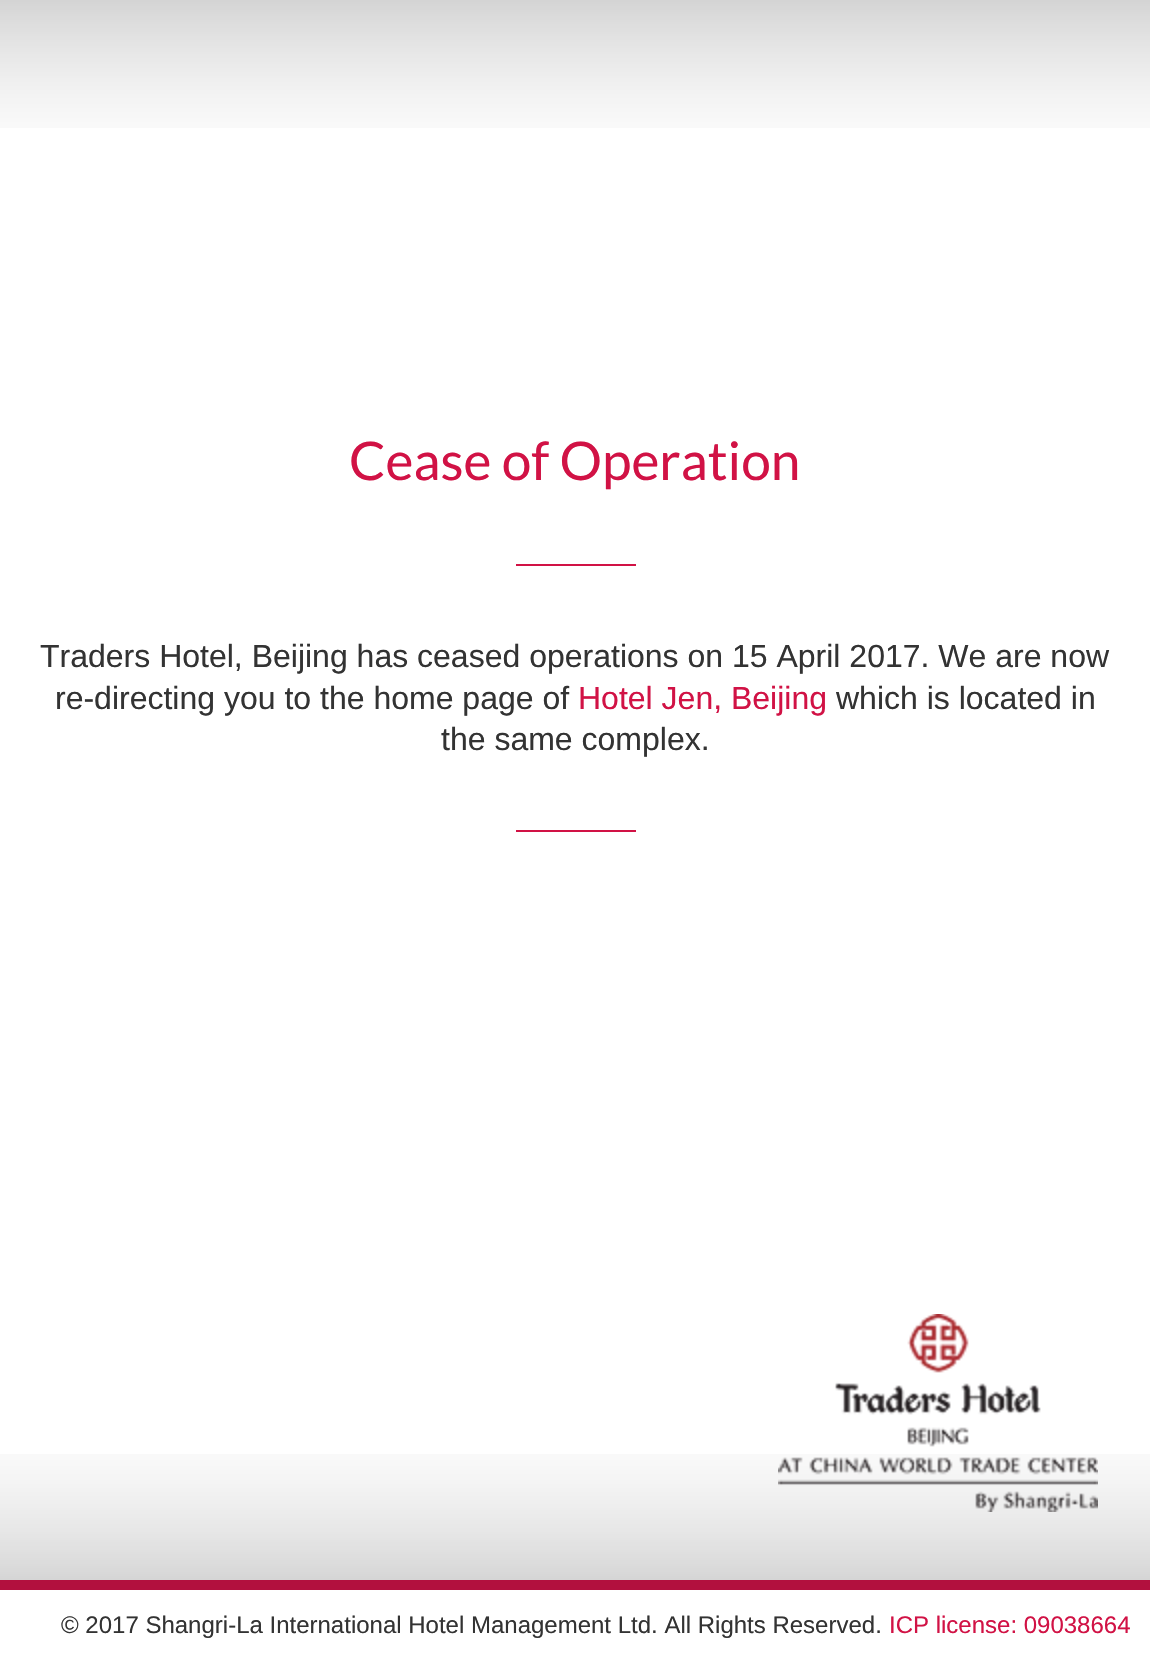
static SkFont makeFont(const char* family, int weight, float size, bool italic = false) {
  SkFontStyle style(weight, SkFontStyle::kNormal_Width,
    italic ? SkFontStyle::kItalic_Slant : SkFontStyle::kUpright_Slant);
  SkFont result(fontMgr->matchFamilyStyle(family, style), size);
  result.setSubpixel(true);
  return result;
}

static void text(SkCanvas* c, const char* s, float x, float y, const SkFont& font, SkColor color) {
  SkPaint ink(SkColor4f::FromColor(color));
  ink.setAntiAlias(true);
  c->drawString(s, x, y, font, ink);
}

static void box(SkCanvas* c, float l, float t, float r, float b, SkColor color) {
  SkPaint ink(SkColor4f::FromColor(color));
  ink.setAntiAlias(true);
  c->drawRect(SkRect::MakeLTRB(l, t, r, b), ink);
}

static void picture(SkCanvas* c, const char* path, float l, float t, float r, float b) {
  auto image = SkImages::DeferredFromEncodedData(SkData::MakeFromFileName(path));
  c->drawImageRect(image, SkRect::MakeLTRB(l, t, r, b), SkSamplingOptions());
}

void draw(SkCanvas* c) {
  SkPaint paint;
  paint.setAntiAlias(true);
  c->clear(0xffffffff);
  picture(c, "img_01.png", 0, 0, 1150, 128);
  SkFont face1 = makeFont("Lato", 400, 53.25f);
  text(c, "Cease of Operation", 349, 480, face1, 0xffd11245);
  box(c, 516, 564, 636, 566, 0xffd11245);
  SkFont face2 = makeFont("Liberation Sans", 400, 32);
  text(c, "Traders Hotel, Beijing has ceased operations on 15 April 2017. We are now", 40, 667, face2, 0xff333333);
  text(c, "re-directing you to the home page of", 55, 709, face2, 0xff333333);
  text(c, "Hotel Jen, Beijing", 578, 709, face2, 0xffd11245);
  text(c, "which is located in", 836, 709, face2, 0xff333333);
  text(c, "the same complex.", 441, 750, face2, 0xff333333);
  box(c, 516, 830, 636, 832, 0xffd11245);
  picture(c, "img_03.png", 0, 1454, 1150, 1580);
  picture(c, "img_02.png", 778, 1314, 1098, 1512);
  box(c, 0, 1580, 1150, 1590, 0xffb2103e);
  SkFont face3 = makeFont("Liberation Sans", 400, 24);
  text(c, "© 2017 Shangri-La International Hotel Management Ltd. All Rights Reserved.", 61, 1633, face3, 0xff333333);
  text(c, "ICP license: 09038664", 889, 1633, face3, 0xffd11245);
}
